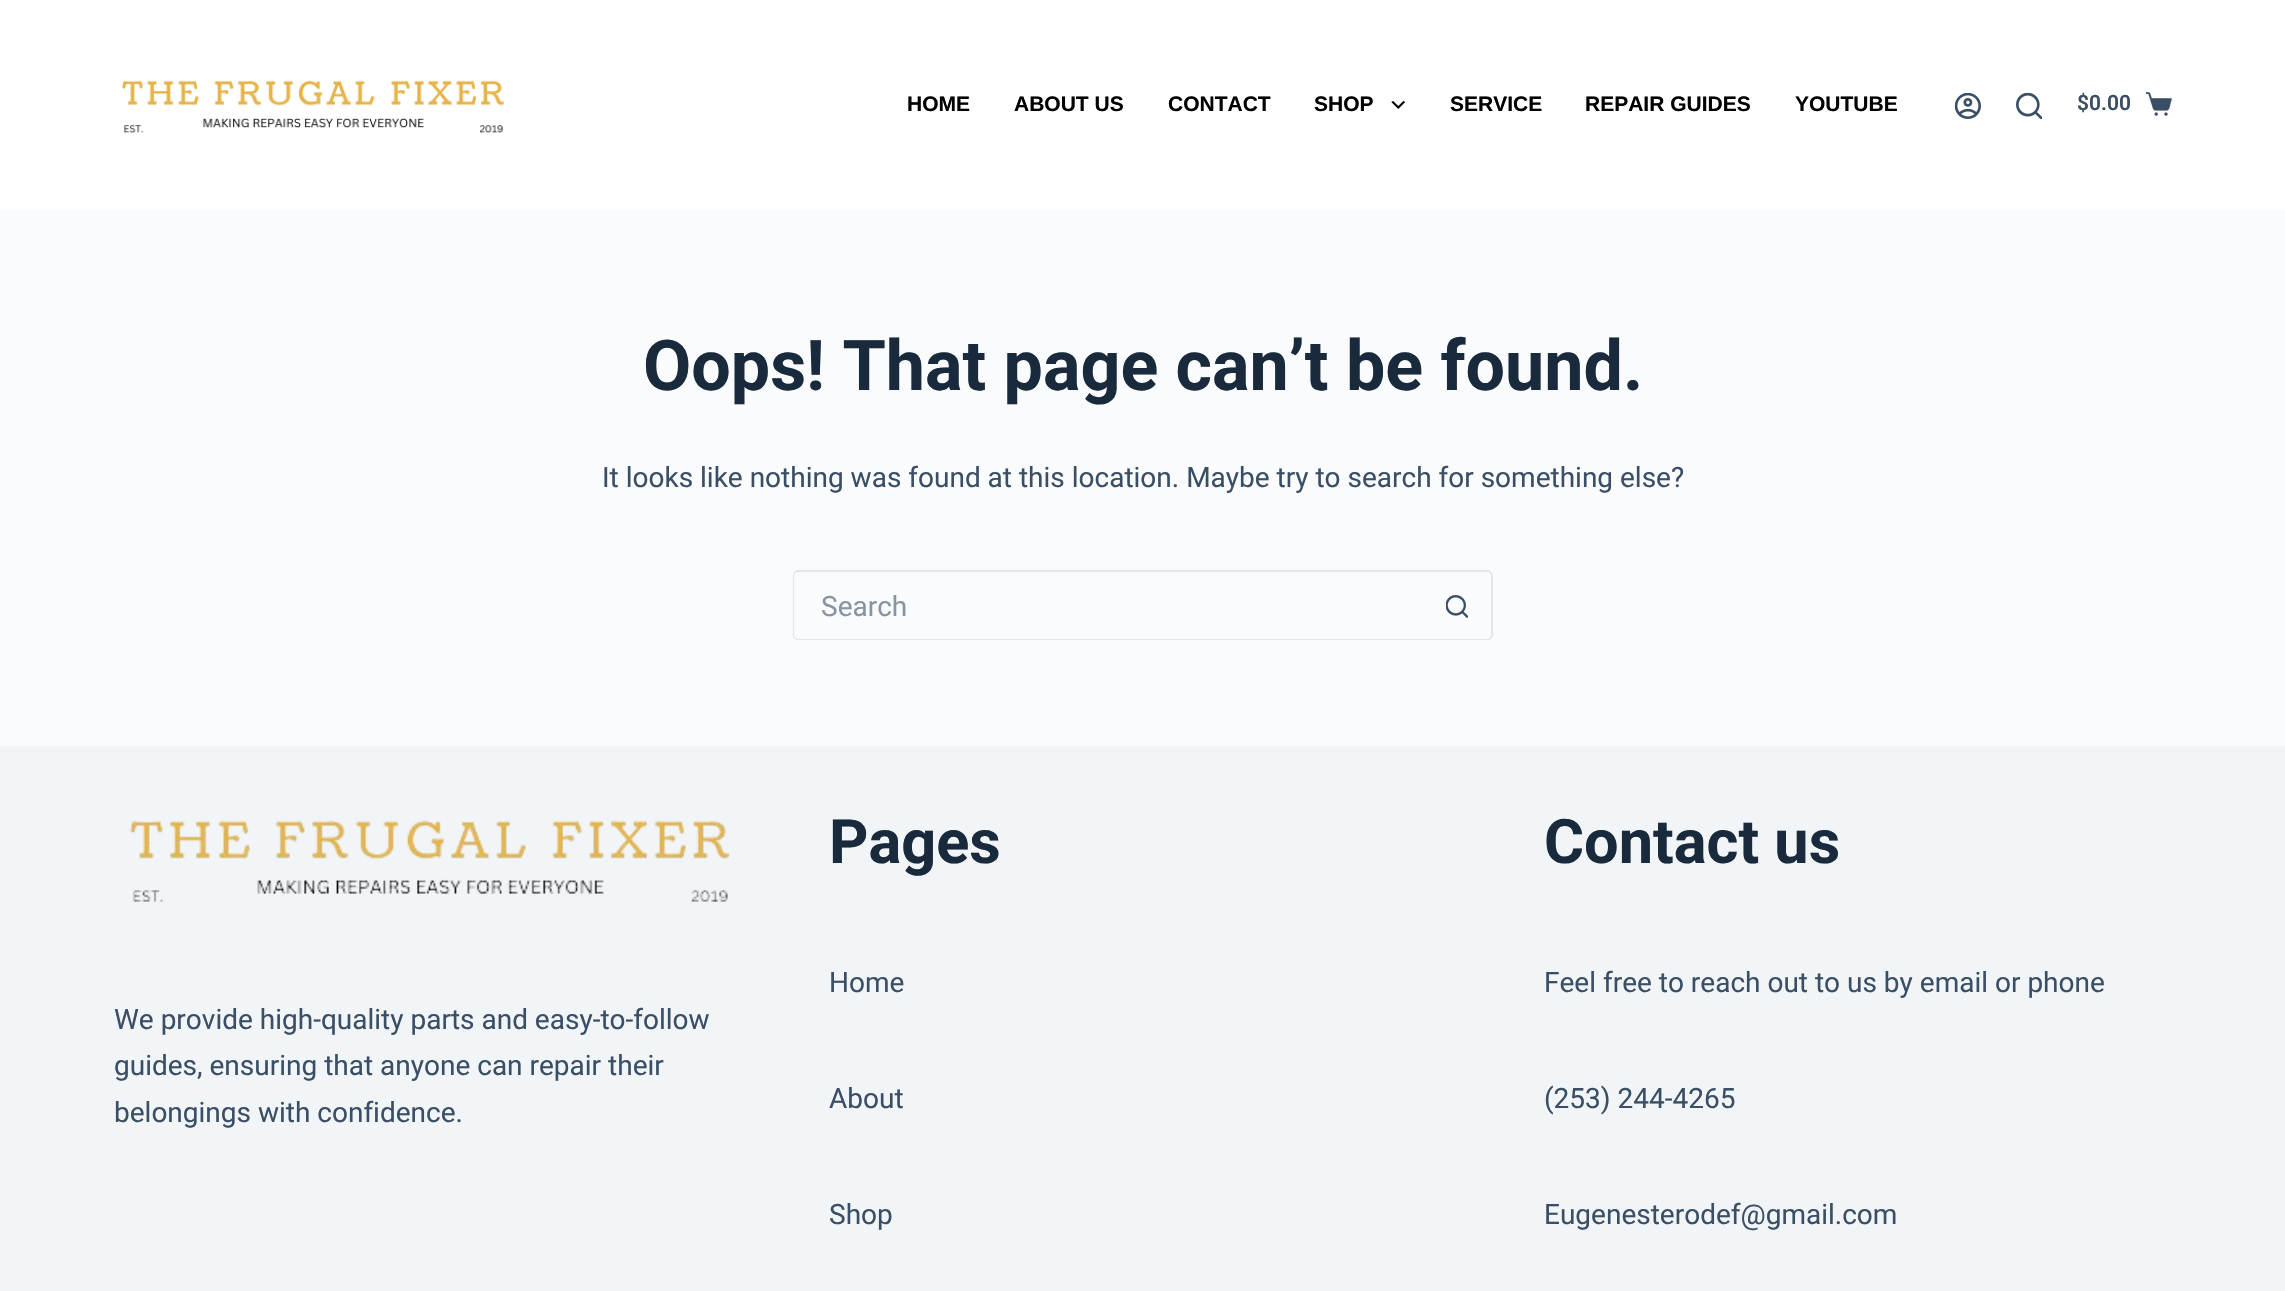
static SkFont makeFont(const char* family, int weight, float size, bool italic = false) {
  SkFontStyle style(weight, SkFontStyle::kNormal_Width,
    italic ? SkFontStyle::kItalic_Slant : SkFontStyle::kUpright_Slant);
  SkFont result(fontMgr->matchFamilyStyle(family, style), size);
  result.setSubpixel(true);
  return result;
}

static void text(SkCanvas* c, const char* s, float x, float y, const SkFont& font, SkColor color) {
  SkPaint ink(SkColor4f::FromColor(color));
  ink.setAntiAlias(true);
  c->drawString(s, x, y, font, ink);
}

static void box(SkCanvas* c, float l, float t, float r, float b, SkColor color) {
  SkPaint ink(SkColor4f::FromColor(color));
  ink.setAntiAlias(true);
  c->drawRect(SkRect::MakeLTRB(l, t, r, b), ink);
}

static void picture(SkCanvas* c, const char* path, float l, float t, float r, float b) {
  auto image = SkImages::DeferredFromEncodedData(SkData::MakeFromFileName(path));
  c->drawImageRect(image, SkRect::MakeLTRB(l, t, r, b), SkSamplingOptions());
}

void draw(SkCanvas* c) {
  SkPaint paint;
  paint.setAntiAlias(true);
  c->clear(0xfffafbfc);
  box(c, 0, 0, 2285, 210, 0xffffffff);
  picture(c, "img_01.png", 122, 80, 504, 133);
  SkFont face1 = makeFont("Liberation Sans", 700, 21);
  text(c, "HOME", 907, 111, face1, 0xff000000);
  text(c, "ABOUT US", 1014, 111, face1, 0xff000000);
  text(c, "CONTACT", 1168, 111, face1, 0xff000000);
  text(c, "SHOP", 1314, 111, face1, 0xff000000);
  picture(c, "img_02.png", 1391, 101, 1405, 109);
  text(c, "SERVICE", 1450, 111, face1, 0xff000000);
  text(c, "REPAIR GUIDES", 1585, 111, face1, 0xff000000);
  text(c, "YOUTUBE", 1795, 111, face1, 0xff000000);
  picture(c, "img_03.png", 1955, 93, 1981, 119);
  picture(c, "img_04.png", 2016, 93, 2042, 119);
  SkFont face2 = makeFont("Roboto", 600, 21);
  text(c, "$0.00", 2077, 110, face2, 0xff3a4f66);
  picture(c, "img_05.png", 2146, 92, 2172, 116);
  SkFont face3 = makeFont("Roboto", 700, 70);
  text(c, "Oops! That page can’t be found.", 643, 390, face3, 0xff192a3d);
  SkFont face4 = makeFont("Roboto", 400, 28);
  text(c, "It looks like nothing was found at this location. Maybe try to search for something else?", 602, 487, face4, 0xff3a4f66);
  paint.setColor(0xffe1e8ed);
  c->drawPath(SkPathBuilder(SkPathFillType::kEvenOdd).moveTo(798, 570).lineTo(1423, 570).lineTo(1423, 640).lineTo(798, 640).cubicTo(795, 640, 793, 638, 793, 635).lineTo(793, 576).cubicTo(793, 573, 795, 570, 798, 570).close().moveTo(798, 572).lineTo(1423, 572).lineTo(1423, 639).lineTo(798, 639).cubicTo(796, 639, 794, 637, 794, 635).lineTo(794, 576).cubicTo(794, 574, 796, 572, 798, 572).close().detach(), paint);
  text(c, "Search", 821, 616, face4, 0xff8794a2);
  c->drawPath(SkPathBuilder(SkPathFillType::kEvenOdd).moveTo(1423, 570).lineTo(1488, 570).cubicTo(1490, 570, 1493, 573, 1493, 576).lineTo(1493, 635).cubicTo(1493, 638, 1490, 640, 1488, 640).lineTo(1423, 640).close().moveTo(1423, 572).lineTo(1488, 572).cubicTo(1489, 572, 1491, 574, 1491, 576).lineTo(1491, 635).cubicTo(1491, 637, 1489, 639, 1488, 639).lineTo(1423, 639).close().detach(), paint);
  picture(c, "img_06.png", 1446, 595, 1468, 618);
  box(c, 0, 746, 2285, 1291, 0xfff2f5f7);
  picture(c, "img_07.png", 129, 820, 730, 902);
  text(c, "We provide high-quality parts and easy-to-follow", 114, 1029, face4, 0xff3a4f66);
  text(c, "guides, ensuring that anyone can repair their", 114, 1075, face4, 0xff3a4f66);
  text(c, "belongings with confidence.", 114, 1122, face4, 0xff3a4f66);
  SkFont face5 = makeFont("Roboto", 700, 61.25f);
  text(c, "Pages", 829, 863, face5, 0xff192a3d);
  text(c, "Home", 829, 992, face4, 0xff3a4f66);
  text(c, "About", 829, 1108, face4, 0xff3a4f66);
  text(c, "Shop", 829, 1224, face4, 0xff3a4f66);
  text(c, "Contact us", 1544, 863, face5, 0xff192a3d);
  text(c, "Feel free to reach out to us by email or phone", 1544, 992, face4, 0xff3a4f66);
  text(c, "(253) 244-4265", 1544, 1108, face4, 0xff3a4f66);
  text(c, "Eugenesterodef@gmail.com", 1544, 1224, face4, 0xff3a4f66);
}
